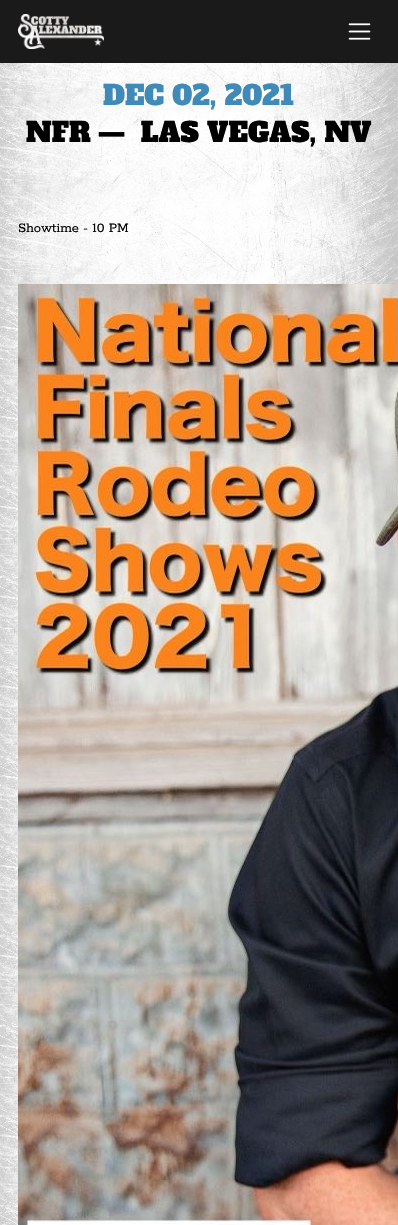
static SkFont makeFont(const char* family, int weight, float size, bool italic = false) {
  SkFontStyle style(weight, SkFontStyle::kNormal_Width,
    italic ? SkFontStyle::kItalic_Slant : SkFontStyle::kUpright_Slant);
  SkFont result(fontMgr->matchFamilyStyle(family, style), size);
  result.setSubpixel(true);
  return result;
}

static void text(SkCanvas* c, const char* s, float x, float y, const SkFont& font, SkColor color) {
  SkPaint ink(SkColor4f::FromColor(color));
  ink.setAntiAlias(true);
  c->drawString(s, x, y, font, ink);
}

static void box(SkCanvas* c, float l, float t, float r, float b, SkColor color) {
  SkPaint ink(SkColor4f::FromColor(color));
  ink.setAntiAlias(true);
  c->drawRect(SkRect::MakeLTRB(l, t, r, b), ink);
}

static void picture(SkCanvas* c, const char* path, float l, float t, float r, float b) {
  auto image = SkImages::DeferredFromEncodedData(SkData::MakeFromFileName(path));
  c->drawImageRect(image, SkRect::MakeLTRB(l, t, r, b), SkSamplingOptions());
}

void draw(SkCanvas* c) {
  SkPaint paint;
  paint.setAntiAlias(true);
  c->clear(0xffffffff);
  picture(c, "img_01.png", 0, 63, 398, 1225);
  box(c, 0, 0, 398, 63, 0xff1a1a1a);
  picture(c, "img_02.png", 18, 14, 104, 49);
  picture(c, "img_03.png", 348, 23, 371, 40);
  SkFont face1 = makeFont("Alfa Slab One", 400, 27.25f);
  text(c, "DEC 02, 2021", 103, 105, face1, 0xff408ab7);
  text(c, "NFR —  LAS VEGAS, NV", 26, 142, face1, 0xff000000);
  SkFont face2 = makeFont("Rokkitt", 400, 14.5f);
  text(c, "Showtime - 10 PM", 18, 232, face2, 0xff000000);
  picture(c, "img_04.png", 18, 284, 398, 1225);
}
